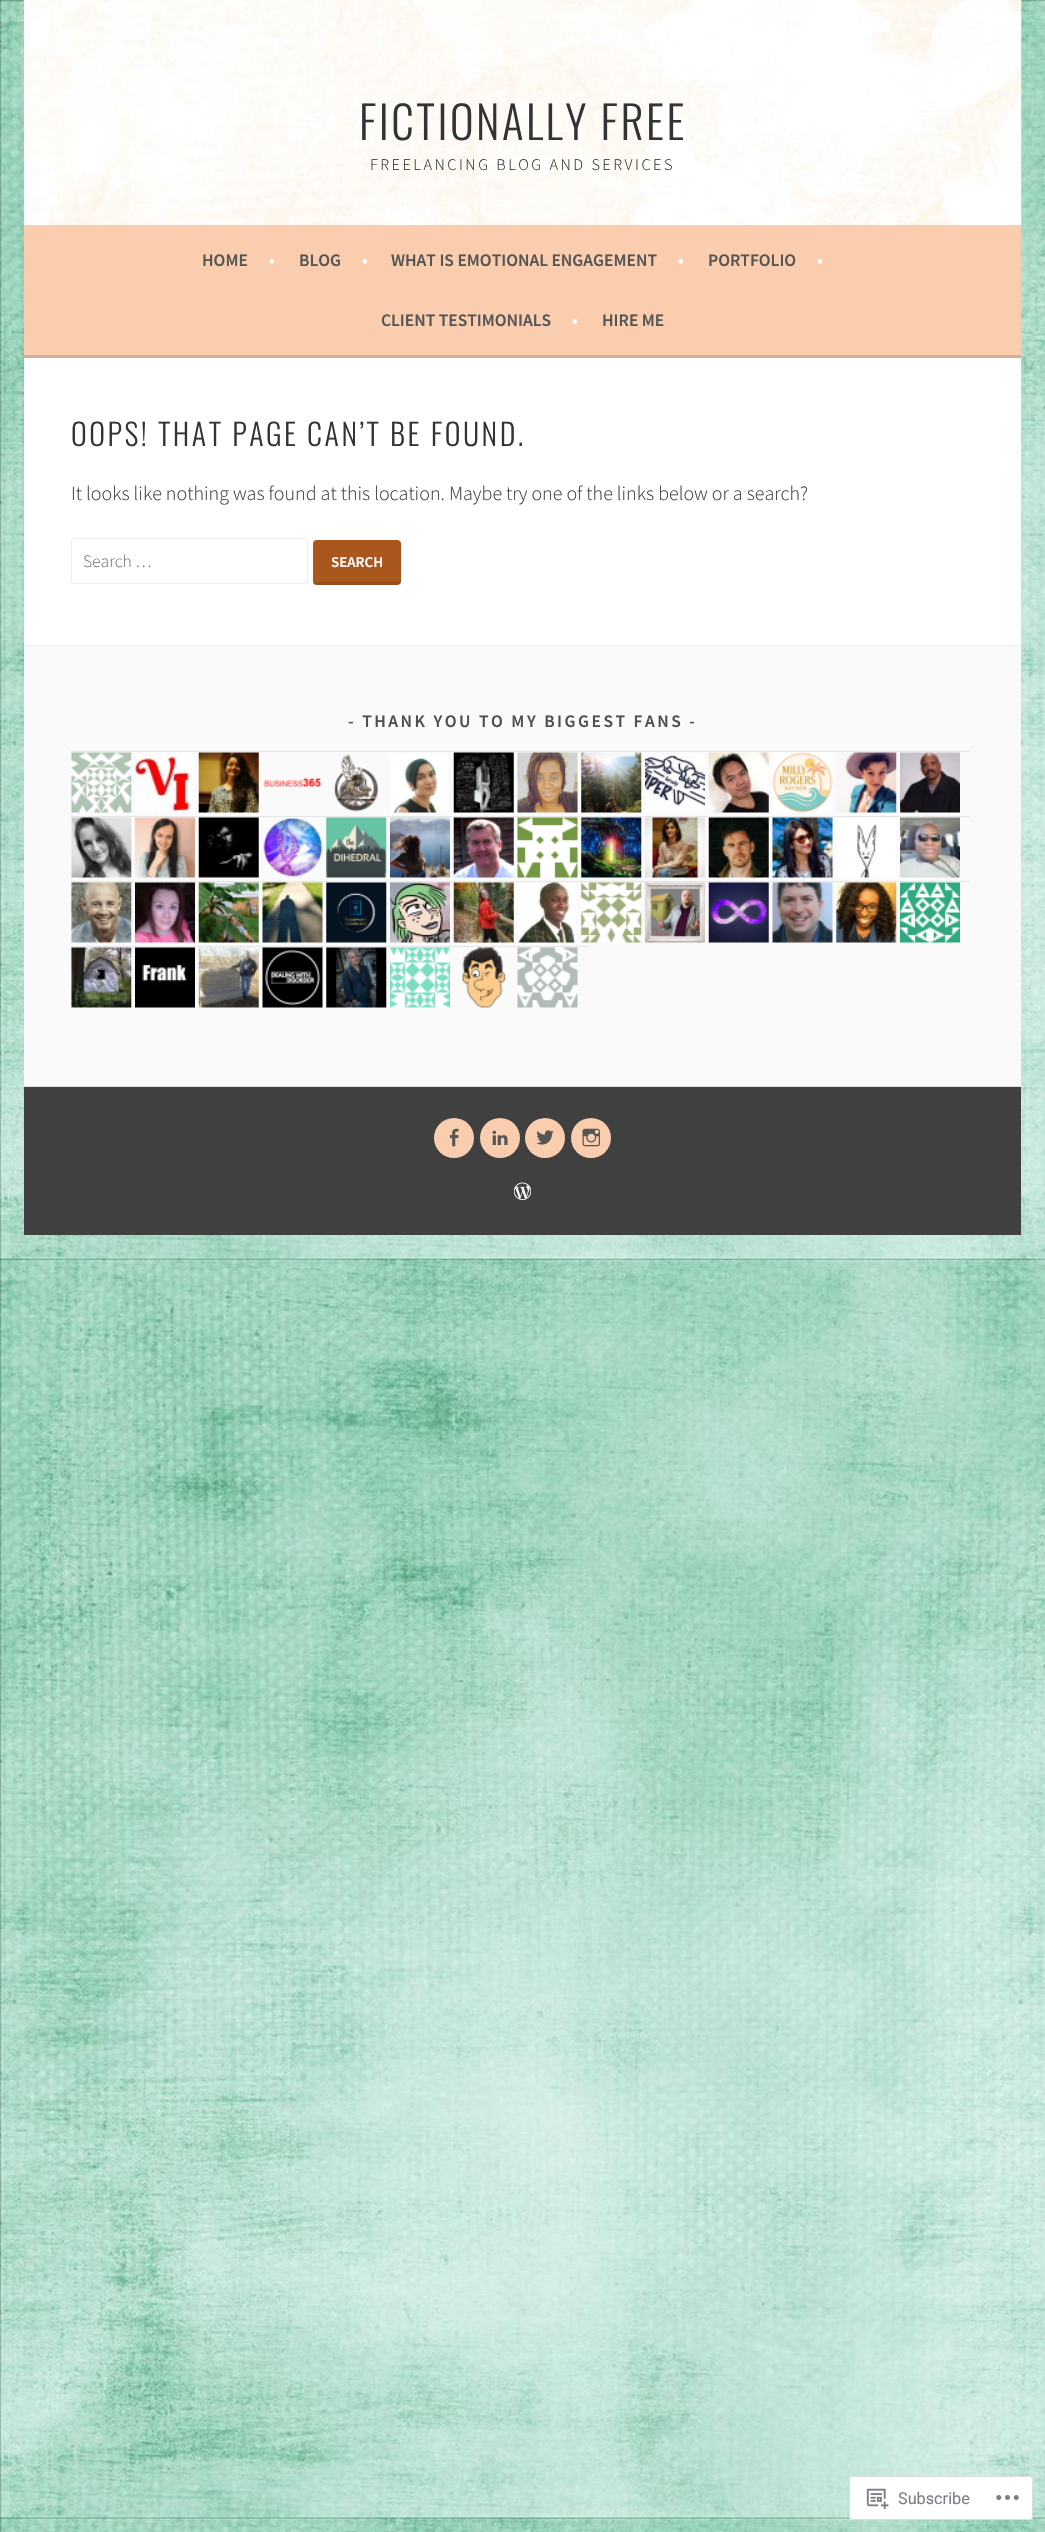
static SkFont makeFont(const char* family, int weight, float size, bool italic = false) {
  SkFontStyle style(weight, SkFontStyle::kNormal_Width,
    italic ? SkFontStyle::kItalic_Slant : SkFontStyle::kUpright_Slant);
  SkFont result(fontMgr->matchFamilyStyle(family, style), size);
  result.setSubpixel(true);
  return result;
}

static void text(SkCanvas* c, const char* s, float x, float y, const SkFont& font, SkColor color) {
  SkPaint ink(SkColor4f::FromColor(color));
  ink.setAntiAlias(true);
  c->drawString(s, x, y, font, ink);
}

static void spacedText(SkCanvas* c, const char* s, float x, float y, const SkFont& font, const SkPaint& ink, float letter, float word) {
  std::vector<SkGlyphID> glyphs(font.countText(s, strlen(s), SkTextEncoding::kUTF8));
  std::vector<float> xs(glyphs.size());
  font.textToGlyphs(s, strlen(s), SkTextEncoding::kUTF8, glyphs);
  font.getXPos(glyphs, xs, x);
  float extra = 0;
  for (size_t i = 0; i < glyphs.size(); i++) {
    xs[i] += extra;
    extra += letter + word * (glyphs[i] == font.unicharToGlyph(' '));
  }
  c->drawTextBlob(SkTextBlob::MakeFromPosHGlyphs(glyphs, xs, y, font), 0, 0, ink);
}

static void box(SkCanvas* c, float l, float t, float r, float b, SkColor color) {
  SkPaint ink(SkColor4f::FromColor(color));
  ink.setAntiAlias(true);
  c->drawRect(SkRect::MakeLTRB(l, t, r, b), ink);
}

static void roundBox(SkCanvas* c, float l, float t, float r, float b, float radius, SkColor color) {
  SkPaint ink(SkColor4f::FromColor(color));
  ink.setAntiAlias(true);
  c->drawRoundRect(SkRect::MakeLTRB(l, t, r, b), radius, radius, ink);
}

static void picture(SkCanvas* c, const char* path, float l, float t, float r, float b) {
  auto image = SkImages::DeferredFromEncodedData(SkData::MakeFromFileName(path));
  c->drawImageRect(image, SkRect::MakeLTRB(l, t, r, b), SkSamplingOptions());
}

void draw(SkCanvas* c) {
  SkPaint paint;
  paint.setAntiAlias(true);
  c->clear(0xffffffff);
  picture(c, "img_01.png", 0, 0, 1045, 2532);
  picture(c, "img_02.png", 23, 0, 1022, 225);
  SkFont face1 = makeFont("Oswald", 300, 45);
  paint.setColor(0xff333333);
  spacedText(c, "FICTIONALLY FREE", 359, 140, face1, paint, 2.5f, 0);
  SkFont face2 = makeFont("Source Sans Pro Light", 300, 16.25f);
  spacedText(c, "FREELANCING BLOG AND SERVICES", 370, 170, face2, paint, 2.5f, 0);
  box(c, 24, 225, 1021, 355, 0xfff9cdad);
  box(c, 24, 355, 1021, 358, 0xffd4ae93);
  SkFont face3 = makeFont("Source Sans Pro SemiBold", 600, 17.5f);
  text(c, "HOME", 202, 266, face3, 0xff565656);
  text(c, "•", 269, 266, face3, 0xffffffff);
  text(c, "BLOG", 299, 266, face3, 0xff565656);
  text(c, "•", 362, 266, face3, 0xffffffff);
  text(c, "WHAT IS EMOTIONAL ENGAGEMENT", 391, 266, face3, 0xff565656);
  text(c, "•", 678, 266, face3, 0xffffffff);
  text(c, "PORTFOLIO", 708, 266, face3, 0xff565656);
  text(c, "•", 817, 266, face3, 0xffffffff);
  text(c, "CLIENT TESTIMONIALS", 381, 326, face3, 0xff565656);
  text(c, "•", 572, 326, face3, 0xffffffff);
  text(c, "HIRE ME", 602, 326, face3, 0xff565656);
  box(c, 24, 358, 1021, 645, 0xffffffff);
  SkFont face4 = makeFont("Oswald", 300, 30);
  spacedText(c, "OOPS! THAT PAGE CAN’T BE FOUND.", 71, 446, face4, paint, 2.5f, 0);
  SkFont face5 = makeFont("Source Sans Pro Light", 300, 20);
  text(c, "It looks like nothing was found at this location. Maybe try one of the links below or a search?", 71, 500, face5, 0xff404040);
  paint.setStyle(SkPaint::kStroke_Style);
  paint.setStrokeWidth(1);
  paint.setColor(0xffeeeeee);
  c->drawRoundRect(SkRect::MakeLTRB(71.5f, 538.5f, 307.5f, 583.5f), 2, 2, paint);
  SkFont face6 = makeFont("Source Sans Pro Light", 300, 17.5f);
  text(c, "Search …", 83, 567, face6, 0xff757575);
  roundBox(c, 313, 540, 401, 585, 4, 0xffa9571d);
  paint.setStyle(SkPaint::kFill_Style);
  paint.setColor(0x1a000000);
  c->drawPath(SkPathBuilder().moveTo(313, 581).cubicTo(313, 583, 315, 585, 317, 585).lineTo(397, 585).cubicTo(399, 585, 401, 583, 401, 581).lineTo(401, 579).cubicTo(401, 581, 400, 582, 398, 582).lineTo(316, 582).cubicTo(315, 582, 314, 582, 313, 581).close().detach(), paint);
  SkFont face7 = makeFont("Source Sans Pro SemiBold", 600, 15);
  text(c, "SEARCH", 331, 567, face7, 0xffffffff);
  box(c, 24, 646, 1021, 1086, 0xfffafafa);
  box(c, 24, 645, 1021, 646, 0xffeeeeee);
  paint.setColor(0xff4f4f4f);
  spacedText(c, "- THANK YOU TO MY BIGGEST FANS -", 348, 727, face3, paint, 2.5f, 0);
  box(c, 71, 751, 970, 752, 0xffe5e5e5);
  picture(c, "img_03.png", 71, 752, 132, 813);
  picture(c, "img_04.png", 135, 752, 195, 813);
  picture(c, "img_05.png", 198, 752, 259, 813);
  picture(c, "img_06.png", 263, 777, 322, 788);
  picture(c, "img_07.png", 333, 754, 379, 812);
  picture(c, "img_08.png", 390, 753, 448, 813);
  picture(c, "img_09.png", 453, 752, 514, 813);
  picture(c, "img_10.png", 517, 752, 578, 813);
  picture(c, "img_11.png", 581, 752, 642, 813);
  picture(c, "img_12.png", 645, 753, 705, 812);
  picture(c, "img_13.png", 708, 752, 769, 813);
  picture(c, "img_14.png", 772, 752, 833, 813);
  picture(c, "img_15.png", 836, 752, 897, 813);
  picture(c, "img_16.png", 900, 752, 960, 813);
  box(c, 71, 816, 970, 817, 0xffe5e5e5);
  picture(c, "img_17.png", 71, 817, 132, 878);
  picture(c, "img_18.png", 135, 817, 195, 878);
  picture(c, "img_19.png", 198, 817, 259, 878);
  picture(c, "img_20.png", 263, 817, 323, 877);
  picture(c, "img_21.png", 326, 817, 387, 878);
  picture(c, "img_22.png", 390, 817, 450, 878);
  picture(c, "img_23.png", 453, 817, 514, 878);
  picture(c, "img_24.png", 517, 817, 578, 878);
  picture(c, "img_25.png", 581, 817, 642, 878);
  picture(c, "img_26.png", 645, 817, 705, 878);
  picture(c, "img_27.png", 708, 817, 769, 878);
  picture(c, "img_28.png", 772, 817, 833, 878);
  picture(c, "img_29.png", 837, 818, 896, 878);
  picture(c, "img_30.png", 900, 817, 960, 878);
  box(c, 71, 881, 970, 882, 0xffe5e5e5);
  picture(c, "img_31.png", 71, 882, 132, 943);
  picture(c, "img_32.png", 135, 882, 195, 943);
  picture(c, "img_33.png", 198, 882, 259, 943);
  picture(c, "img_34.png", 262, 882, 323, 943);
  picture(c, "img_35.png", 326, 882, 387, 943);
  picture(c, "img_36.png", 390, 882, 450, 943);
  picture(c, "img_37.png", 453, 882, 514, 943);
  picture(c, "img_38.png", 518, 882, 577, 943);
  picture(c, "img_39.png", 581, 882, 642, 943);
  picture(c, "img_40.png", 645, 882, 705, 943);
  picture(c, "img_41.png", 708, 882, 769, 943);
  picture(c, "img_42.png", 772, 882, 833, 943);
  picture(c, "img_43.png", 836, 882, 897, 943);
  picture(c, "img_44.png", 900, 882, 960, 943);
  box(c, 71, 946, 588, 947, 0xffe5e5e5);
  picture(c, "img_45.png", 71, 947, 132, 1008);
  picture(c, "img_46.png", 135, 947, 195, 1008);
  picture(c, "img_47.png", 198, 947, 259, 1008);
  picture(c, "img_48.png", 262, 947, 323, 1008);
  picture(c, "img_49.png", 326, 947, 387, 1008);
  picture(c, "img_50.png", 390, 947, 450, 1008);
  picture(c, "img_51.png", 462, 947, 506, 1008);
  picture(c, "img_52.png", 517, 947, 578, 1008);
  box(c, 24, 1087, 1021, 1235, 0xff404040);
  box(c, 24, 1086, 1021, 1087, 0xffd9d9d9);
  paint.setColor(0xfff9cdad);
  c->drawCircle(454, 1138, 20, paint);
  picture(c, "img_53.png", 450, 1128, 459, 1147);
  c->drawCircle(500, 1138, 20, paint);
  picture(c, "img_54.png", 492, 1130, 508, 1145);
  c->drawCircle(545, 1138, 20, paint);
  picture(c, "img_55.png", 536, 1130, 554, 1145);
  c->drawCircle(591, 1138, 20, paint);
  picture(c, "img_56.png", 582, 1128, 600, 1147);
  picture(c, "img_57.png", 514, 1182, 531, 1200);
  roundBox(c, 849, 2476, 1033, 2520, 4, 0xfaffffff);
  paint.setStyle(SkPaint::kStroke_Style);
  paint.setColor(0xfadcdcde);
  c->drawRoundRect(SkRect::MakeLTRB(849.5f, 2476.5f, 1032.5f, 2519.5f), 3.5f, 3.5f, paint);
  picture(c, "img_58.png", 866, 2488, 889, 2510);
  SkFont face8 = makeFont("Roboto", 400, 16.25f);
  text(c, "Subscribe", 898, 2504, face8, 0xff7b7f84);
  picture(c, "img_59.png", 996, 2495, 1019, 2500);
}
